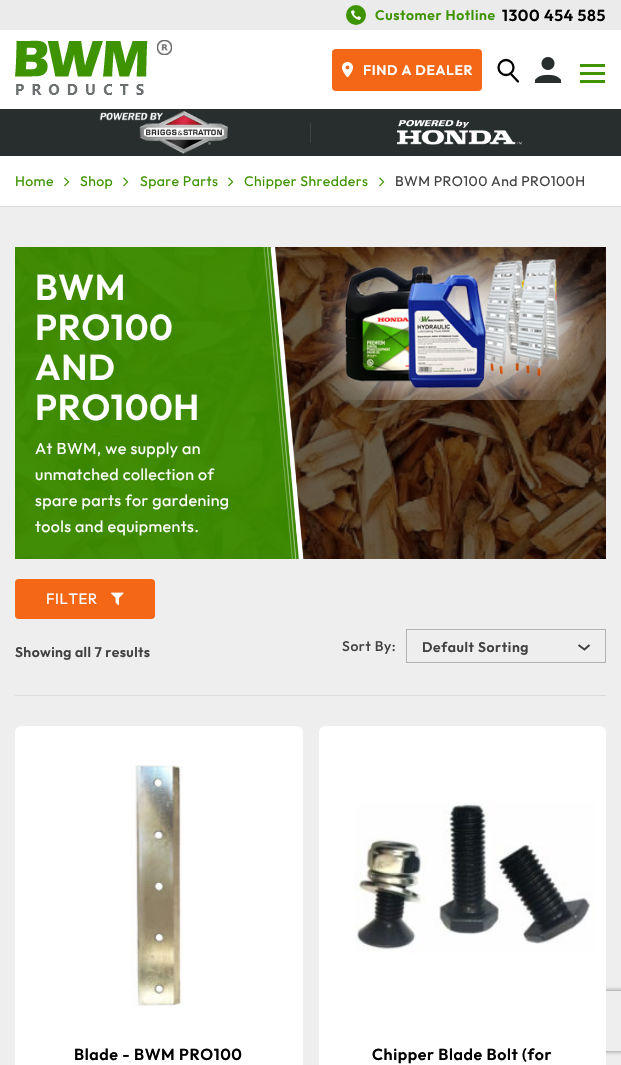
static SkFont makeFont(const char* family, int weight, float size, bool italic = false) {
  SkFontStyle style(weight, SkFontStyle::kNormal_Width,
    italic ? SkFontStyle::kItalic_Slant : SkFontStyle::kUpright_Slant);
  SkFont result(fontMgr->matchFamilyStyle(family, style), size);
  result.setSubpixel(true);
  return result;
}

static void spacedText(SkCanvas* c, const char* s, float x, float y, const SkFont& font, const SkPaint& ink, float letter, float word) {
  std::vector<SkGlyphID> glyphs(font.countText(s, strlen(s), SkTextEncoding::kUTF8));
  std::vector<float> xs(glyphs.size());
  font.textToGlyphs(s, strlen(s), SkTextEncoding::kUTF8, glyphs);
  font.getXPos(glyphs, xs, x);
  float extra = 0;
  for (size_t i = 0; i < glyphs.size(); i++) {
    xs[i] += extra;
    extra += letter + word * (glyphs[i] == font.unicharToGlyph(' '));
  }
  c->drawTextBlob(SkTextBlob::MakeFromPosHGlyphs(glyphs, xs, y, font), 0, 0, ink);
}

static void box(SkCanvas* c, float l, float t, float r, float b, SkColor color) {
  SkPaint ink(SkColor4f::FromColor(color));
  ink.setAntiAlias(true);
  c->drawRect(SkRect::MakeLTRB(l, t, r, b), ink);
}

static void roundBox(SkCanvas* c, float l, float t, float r, float b, float radius, SkColor color) {
  SkPaint ink(SkColor4f::FromColor(color));
  ink.setAntiAlias(true);
  c->drawRoundRect(SkRect::MakeLTRB(l, t, r, b), radius, radius, ink);
}

static void picture(SkCanvas* c, const char* path, float l, float t, float r, float b) {
  auto image = SkImages::DeferredFromEncodedData(SkData::MakeFromFileName(path));
  c->drawImageRect(image, SkRect::MakeLTRB(l, t, r, b), SkSamplingOptions());
}

void draw(SkCanvas* c) {
  SkPaint paint;
  paint.setAntiAlias(true);
  c->clear(0xffffffff);
  box(c, 0, 0, 621, 30, 0xffebebeb);
  paint.setColor(0xff3e9400);
  c->drawCircle(356, 15, 10, paint);
  picture(c, "img_01.png", 351, 10, 361, 20);
  SkFont face1 = makeFont("Outfit", 600, 14);
  spacedText(c, "Customer Hotline", 375, 20, face1, paint, 0.6f, 0);
  SkFont face2 = makeFont("Outfit", 600, 16);
  paint.setColor(0xff000000);
  spacedText(c, "1300 454 585", 502, 21, face2, paint, 0.6f, 0);
  picture(c, "img_02.png", 15, 40, 172, 95);
  roundBox(c, 332, 49, 482, 91, 4, 0xfff46717);
  picture(c, "img_03.png", 342, 62, 353, 77);
  paint.setColor(0xffffffff);
  spacedText(c, "FIND A DEALER", 363, 75, face1, paint, 0.6f, 0);
  paint.setStyle(SkPaint::kStroke_Style);
  paint.setStrokeWidth(2.3f);
  paint.setColor(0xff000000);
  c->drawCircle(506, 67.5f, 7.5f, paint);
  paint.setStrokeCap(SkPaint::kRound_Cap);
  c->drawPath(SkPathBuilder().moveTo(510.5f, 73.5f).lineTo(518, 81.5f).detach(), paint);
  picture(c, "img_04.png", 535, 57, 561, 83);
  box(c, 580, 64, 605, 67, 0xff3e9400);
  box(c, 580, 72, 605, 75, 0xff3e9400);
  box(c, 580, 80, 605, 83, 0xff3e9400);
  box(c, 0, 109, 621, 156, 0xff282d2d);
  picture(c, "img_05.png", 99, 111, 228, 154);
  box(c, 310, 123, 311, 143, 0xff3e4242);
  picture(c, "img_06.png", 397, 120, 522, 145);
  box(c, 0, 206, 621, 207, 0xffdcdcdc);
  SkFont face3 = makeFont("Outfit", 400, 14);
  paint.setStyle(SkPaint::kFill_Style);
  paint.setColor(0xff3e9400);
  spacedText(c, "Home", 15, 186, face3, paint, 0.4f, 0);
  picture(c, "img_07.png", 64, 177, 70, 187);
  spacedText(c, "Shop", 80, 186, face3, paint, 0.4f, 0);
  picture(c, "img_07.png", 123, 177, 129, 187);
  spacedText(c, "Spare Parts", 140, 186, face3, paint, 0.4f, 0);
  picture(c, "img_07.png", 228, 177, 234, 187);
  spacedText(c, "Chipper Shredders", 244, 186, face3, paint, 0.4f, 0);
  picture(c, "img_07.png", 379, 177, 385, 187);
  paint.setColor(0xff414141);
  spacedText(c, "BWM PRO100 And PRO100H", 395, 186, face3, paint, 0.4f, 0);
  box(c, 0, 207, 621, 1065, 0xffeeeeee);
  picture(c, "img_08.png", 15, 247, 606, 559);
  picture(c, "img_09.png", 15, 247, 304, 559);
  SkFont face4 = makeFont("Outfit", 600, 36);
  paint.setColor(0xffffffff);
  spacedText(c, "BWM", 35, 300, face4, paint, 0.6f, 0);
  spacedText(c, "PRO100", 35, 340, face4, paint, 0.6f, 0);
  spacedText(c, "AND", 35, 380, face4, paint, 0.6f, 0);
  spacedText(c, "PRO100H", 35, 420, face4, paint, 0.6f, 0);
  SkFont face5 = makeFont("Outfit", 400, 16);
  spacedText(c, "At BWM, we supply an", 35, 454, face5, paint, 0.4f, 0);
  spacedText(c, "unmatched collection of", 35, 480, face5, paint, 0.4f, 0);
  spacedText(c, "spare parts for gardening", 35, 506, face5, paint, 0.4f, 0);
  spacedText(c, "tools and equipments.", 35, 532, face5, paint, 0.4f, 0);
  picture(c, "img_10.png", 314, 247, 604, 400);
  roundBox(c, 15, 579, 155, 619, 4, 0xfff46717);
  SkFont face6 = makeFont("Outfit", 400, 15);
  spacedText(c, "FILTER", 46, 604, face6, paint, 0.6f, 0);
  picture(c, "img_11.png", 111, 592, 124, 606);
  box(c, 15, 695, 606, 696, 0xffdcdcdc);
  paint.setColor(0xff414141);
  spacedText(c, "Showing all 7 results", 15, 657, face1, paint, 0.4f, 0);
  SkFont face7 = makeFont("Outfit", 500, 14);
  spacedText(c, "Sort By:", 342, 651, face7, paint, 0.6f, 0);
  paint.setStyle(SkPaint::kStroke_Style);
  paint.setStrokeWidth(2);
  paint.setStrokeCap(SkPaint::kButt_Cap);
  c->drawPath(SkPathBuilder().moveTo(578.5f, 645).lineTo(584.5f, 649.5f).lineTo(589.5f, 645).detach(), paint);
  paint.setStrokeWidth(1);
  paint.setColor(0xffb2b2b2);
  c->drawRect(SkRect::MakeLTRB(406.5f, 629.5f, 605.5f, 662.5f), paint);
  paint.setStyle(SkPaint::kFill_Style);
  paint.setColor(0xff414141);
  spacedText(c, "Default Sorting", 422, 652, face1, paint, 0.6f, 0);
  roundBox(c, 15, 726, 303, 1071, 6, 0xffffffff);
  picture(c, "img_12.png", 130, 760, 183, 1006);
  paint.setColor(0xff000000);
  spacedText(c, "Blade - BWM PRO100", 74, 1060, face2, paint, 0.6f, 0);
  c->save();
  c->clipPath(SkPathBuilder(SkPathFillType::kEvenOdd).moveTo(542, 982).lineTo(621, 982).lineTo(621, 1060).lineTo(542, 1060).close().moveTo(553, 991).lineTo(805, 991).cubicTo(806, 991, 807, 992, 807, 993).lineTo(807, 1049).cubicTo(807, 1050, 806, 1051, 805, 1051).lineTo(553, 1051).cubicTo(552, 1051, 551, 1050, 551, 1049).lineTo(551, 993).cubicTo(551, 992, 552, 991, 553, 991).close().detach(), true);
  paint.setColor(0xff808080);
  paint.setMaskFilter(SkMaskFilter::MakeBlur(kNormal_SkBlurStyle, 2.5f));
  c->drawRoundRect(SkRect::MakeLTRB(551, 991, 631, 1051), 2, 2, paint);
  paint.setMaskFilter(nullptr);
  c->restore();
  roundBox(c, 319, 726, 606, 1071, 6, 0xffffffff);
  picture(c, "img_13.png", 354, 802, 595, 953);
  paint.setColor(0xff000000);
  spacedText(c, "Chipper Blade Bolt (for", 372, 1060, face2, paint, 0.6f, 0);
}
